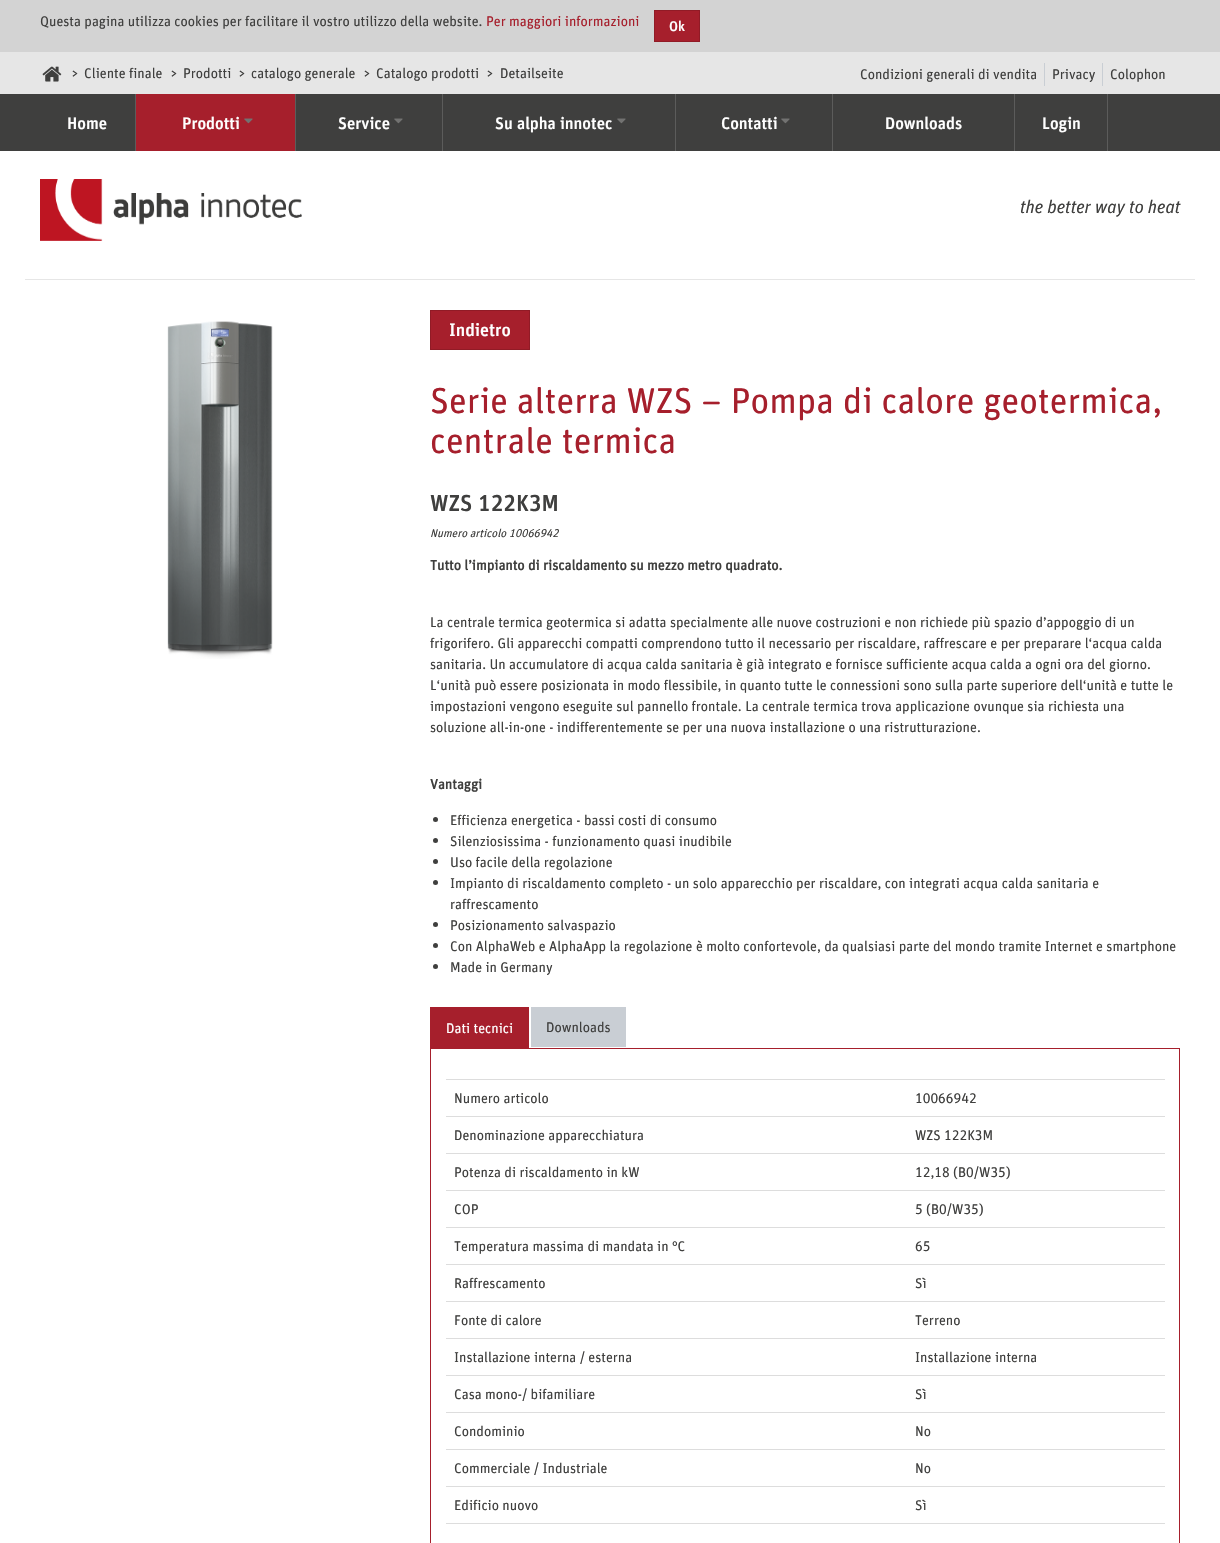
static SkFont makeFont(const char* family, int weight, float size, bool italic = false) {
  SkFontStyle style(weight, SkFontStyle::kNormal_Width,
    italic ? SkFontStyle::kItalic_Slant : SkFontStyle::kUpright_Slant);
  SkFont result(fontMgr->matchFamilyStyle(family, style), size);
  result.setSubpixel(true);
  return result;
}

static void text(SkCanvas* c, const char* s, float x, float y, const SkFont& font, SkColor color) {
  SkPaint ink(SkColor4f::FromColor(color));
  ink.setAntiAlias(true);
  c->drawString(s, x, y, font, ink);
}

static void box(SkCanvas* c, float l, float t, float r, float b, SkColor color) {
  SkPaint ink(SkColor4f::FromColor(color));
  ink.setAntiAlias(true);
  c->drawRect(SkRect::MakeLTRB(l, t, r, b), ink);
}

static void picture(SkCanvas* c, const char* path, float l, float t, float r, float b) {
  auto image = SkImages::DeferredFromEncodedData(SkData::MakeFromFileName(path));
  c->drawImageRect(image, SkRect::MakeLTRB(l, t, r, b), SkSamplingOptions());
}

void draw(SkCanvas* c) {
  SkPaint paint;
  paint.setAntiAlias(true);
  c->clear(0xffffffff);
  box(c, 0, 0, 1220, 52, 0xffd3d3d3);
  SkFont face1 = makeFont("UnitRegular", 400, 14);
  text(c, "Questa pagina utilizza cookies per facilitare il vostro utilizzo della website.", 40, 26, face1, 0xff3f3f3e);
  text(c, "Per maggiori informazioni", 486, 26, face1, 0xffa61f2c);
  paint.setColor(0xffa61f2c);
  c->drawRect(SkRect::MakeLTRB(654.5f, 10.5f, 699.5f, 41.5f), paint);
  paint.setStyle(SkPaint::kStroke_Style);
  paint.setStrokeWidth(1);
  paint.setColor(0xff911b26);
  c->drawRect(SkRect::MakeLTRB(654.5f, 10.5f, 699.5f, 41.5f), paint);
  SkFont face2 = makeFont("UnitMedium", 500, 14);
  text(c, "Ok", 669, 31, face2, 0xffffffff);
  box(c, 0, 52, 1220, 94, 0xffe6e6e6);
  picture(c, "img_01.png", 42, 66, 62, 82);
  text(c, ">", 71, 78, face1, 0xff3f3f3e);
  text(c, "Cliente finale", 84, 78, face1, 0xff3f3f3e);
  text(c, ">", 170, 78, face1, 0xff3f3f3e);
  text(c, "Prodotti", 183, 78, face1, 0xff3f3f3e);
  text(c, ">", 238, 78, face1, 0xff3f3f3e);
  text(c, "catalogo generale", 251, 78, face1, 0xff3f3f3e);
  text(c, ">", 363, 78, face1, 0xff3f3f3e);
  text(c, "Catalogo prodotti", 376, 78, face1, 0xff3f3f3e);
  text(c, ">", 486, 78, face1, 0xff3f3f3e);
  text(c, "Detailseite", 500, 78, face1, 0xff3f3f3e);
  text(c, "Condizioni generali di vendita", 860, 79, face1, 0xff3f3f3e);
  box(c, 1044, 63, 1045, 86, 0xffc9ced4);
  text(c, "Privacy", 1052, 79, face1, 0xff3f3f3e);
  box(c, 1102, 63, 1103, 86, 0xffc9ced4);
  text(c, "Colophon", 1110, 79, face1, 0xff3f3f3e);
  box(c, 0, 94, 1220, 151, 0xff3f3f3e);
  box(c, 135, 94, 136, 151, 0xff5c5c5b);
  SkFont face3 = makeFont("UnitMedium", 500, 16.75f);
  text(c, "Home", 67, 129, face3, 0xffffffff);
  box(c, 295, 94, 296, 151, 0xff5c5c5b);
  box(c, 136, 94, 295, 151, 0xffa61f2c);
  text(c, "Prodotti", 182, 129, face3, 0xffffffff);
  picture(c, "img_02.png", 244, 118, 253, 124);
  box(c, 442, 94, 443, 151, 0xff5c5c5b);
  text(c, "Service", 338, 129, face3, 0xffffffff);
  picture(c, "img_03.png", 394, 118, 403, 124);
  box(c, 675, 94, 676, 151, 0xff5c5c5b);
  text(c, "Su alpha innotec", 495, 129, face3, 0xffffffff);
  picture(c, "img_03.png", 617, 118, 626, 124);
  box(c, 832, 94, 833, 151, 0xff5c5c5b);
  text(c, "Contatti", 721, 129, face3, 0xffffffff);
  picture(c, "img_03.png", 781, 118, 790, 124);
  box(c, 1014, 94, 1015, 151, 0xff5c5c5b);
  text(c, "Downloads", 885, 129, face3, 0xffffffff);
  box(c, 1107, 94, 1108, 151, 0xff5c5c5b);
  text(c, "Login", 1042, 129, face3, 0xffffffff);
  box(c, 25, 279, 1195, 280, 0xffe6e6e6);
  picture(c, "img_04.png", 40, 179, 302, 241);
  SkFont face4 = makeFont("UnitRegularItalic", 400, 18.25f);
  text(c, "the better way to heat", 1020, 213, face4, 0xff3f3f3e);
  picture(c, "img_05.png", 167, 321, 273, 659);
  paint.setStyle(SkPaint::kFill_Style);
  paint.setColor(0xffa61f2c);
  c->drawRect(SkRect::MakeLTRB(430.5f, 310.5f, 529.5f, 349.5f), paint);
  paint.setStyle(SkPaint::kStroke_Style);
  paint.setColor(0xff911b26);
  c->drawRect(SkRect::MakeLTRB(430.5f, 310.5f, 529.5f, 349.5f), paint);
  SkFont face5 = makeFont("UnitMedium", 500, 18);
  text(c, "Indietro", 449, 336, face5, 0xffffffff);
  SkFont face6 = makeFont("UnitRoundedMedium", 400, 36);
  text(c, "Serie alterra WZS – Pompa di calore geotermica,", 430, 413, face6, 0xffa61f2c);
  text(c, "centrale termica", 430, 453, face6, 0xffa61f2c);
  SkFont face7 = makeFont("UnitMedium", 500, 23);
  text(c, "WZS 122K3M", 430, 511, face7, 0xff3f3f3e);
  SkFont face8 = makeFont("UnitRegular", 400, 11.25f, true);
  text(c, "Numero articolo 10066942", 430, 537, face8, 0xff3f3f3e);
  SkFont face9 = makeFont("UnitRegular", 700, 14);
  text(c, "Tutto l’impianto di riscaldamento su mezzo metro quadrato.", 430, 570, face9, 0xff3f3f3e);
  text(c, "La centrale termica geotermica si adatta specialmente alle nuove costruzioni e non richiede più spazio d’appoggio di un", 430, 627, face1, 0xff3f3f3e);
  text(c, "frigorifero. Gli apparecchi compatti comprendono tutto il necessario per riscaldare, raffrescare e per preparare l‘acqua calda", 430, 648, face1, 0xff3f3f3e);
  text(c, "sanitaria. Un accumulatore di acqua calda sanitaria è già integrato e fornisce sufficiente acqua calda a ogni ora del giorno.", 430, 669, face1, 0xff3f3f3e);
  text(c, "L‘unità può essere posizionata in modo flessibile, in quanto tutte le connessioni sono sulla parte superiore dell‘unità e tutte le", 430, 690, face1, 0xff3f3f3e);
  text(c, "impostazioni vengono eseguite sul pannello frontale. La centrale termica trova applicazione ovunque sia richiesta una", 430, 711, face1, 0xff3f3f3e);
  text(c, "soluzione all-in-one - indifferentemente se per una nuova installazione o una ristrutturazione.", 430, 732, face1, 0xff3f3f3e);
  text(c, "Vantaggi", 430, 789, face9, 0xff3f3f3e);
  paint.setStyle(SkPaint::kFill_Style);
  paint.setColor(0xff3f3f3e);
  c->drawCircle(435.5f, 819.5f, 2.5f, paint);
  text(c, "Efficienza energetica - bassi costi di consumo", 450, 825, face1, 0xff3f3f3e);
  c->drawCircle(435.5f, 840.5f, 2.5f, paint);
  text(c, "Silenziosissima - funzionamento quasi inudibile", 450, 846, face1, 0xff3f3f3e);
  c->drawCircle(435.5f, 861.5f, 2.5f, paint);
  text(c, "Uso facile della regolazione", 450, 867, face1, 0xff3f3f3e);
  c->drawCircle(435.5f, 882.5f, 2.5f, paint);
  text(c, "Impianto di riscaldamento completo - un solo apparecchio per riscaldare, con integrati acqua calda sanitaria e", 450, 888, face1, 0xff3f3f3e);
  text(c, "raffrescamento", 450, 909, face1, 0xff3f3f3e);
  c->drawCircle(435.5f, 924.5f, 2.5f, paint);
  text(c, "Posizionamento salvaspazio", 450, 930, face1, 0xff3f3f3e);
  c->drawCircle(435.5f, 945.5f, 2.5f, paint);
  text(c, "Con AlphaWeb e AlphaApp la regolazione è molto confortevole, da qualsiasi parte del mondo tramite Internet e smartphone", 450, 951, face1, 0xff3f3f3e);
  c->drawCircle(435.5f, 966.5f, 2.5f, paint);
  text(c, "Made in Germany", 450, 972, face1, 0xff3f3f3e);
  box(c, 529, 1048, 1180, 1049, 0xffa61f2c);
  box(c, 430, 1007, 529, 1049, 0xffa61f2c);
  text(c, "Dati tecnici", 446, 1033, face1, 0xffffffff);
  box(c, 531, 1007, 626, 1047, 0xffc9ced4);
  text(c, "Downloads", 546, 1032, face1, 0xff3f3f3e);
  box(c, 1179, 1049, 1180, 1543, 0xffa61f2c);
  box(c, 430, 1049, 431, 1543, 0xffa61f2c);
  text(c, "Numero articolo", 454, 1103, face1, 0xff3f3f3e);
  box(c, 446, 1079, 1165, 1080, 0xffdddddd);
  text(c, "10066942", 915, 1103, face1, 0xff3f3f3e);
  text(c, "Denominazione apparecchiatura", 454, 1140, face1, 0xff3f3f3e);
  box(c, 446, 1116, 1165, 1117, 0xffdddddd);
  text(c, "WZS 122K3M", 915, 1140, face1, 0xff3f3f3e);
  text(c, "Potenza di riscaldamento in kW", 454, 1177, face1, 0xff3f3f3e);
  box(c, 446, 1153, 1165, 1154, 0xffdddddd);
  text(c, "12,18 (B0/W35)", 915, 1177, face1, 0xff3f3f3e);
  text(c, "COP", 454, 1214, face1, 0xff3f3f3e);
  box(c, 446, 1190, 1165, 1191, 0xffdddddd);
  text(c, "5 (B0/W35)", 915, 1214, face1, 0xff3f3f3e);
  text(c, "Temperatura massima di mandata in °C", 454, 1251, face1, 0xff3f3f3e);
  box(c, 446, 1227, 1165, 1228, 0xffdddddd);
  text(c, "65", 915, 1251, face1, 0xff3f3f3e);
  text(c, "Raffrescamento", 454, 1288, face1, 0xff3f3f3e);
  box(c, 446, 1264, 1165, 1265, 0xffdddddd);
  text(c, "Sì", 915, 1288, face1, 0xff3f3f3e);
  text(c, "Fonte di calore", 454, 1325, face1, 0xff3f3f3e);
  box(c, 446, 1301, 1165, 1302, 0xffdddddd);
  text(c, "Terreno", 915, 1325, face1, 0xff3f3f3e);
  text(c, "Installazione interna / esterna", 454, 1362, face1, 0xff3f3f3e);
  box(c, 446, 1338, 1165, 1339, 0xffdddddd);
  text(c, "Installazione interna", 915, 1362, face1, 0xff3f3f3e);
  text(c, "Casa mono-/ bifamiliare", 454, 1399, face1, 0xff3f3f3e);
  box(c, 446, 1375, 1165, 1376, 0xffdddddd);
  text(c, "Sì", 915, 1399, face1, 0xff3f3f3e);
  text(c, "Condominio", 454, 1436, face1, 0xff3f3f3e);
  box(c, 446, 1412, 1165, 1413, 0xffdddddd);
  text(c, "No", 915, 1436, face1, 0xff3f3f3e);
  text(c, "Commerciale / Industriale", 454, 1473, face1, 0xff3f3f3e);
  box(c, 446, 1449, 1165, 1450, 0xffdddddd);
  text(c, "No", 915, 1473, face1, 0xff3f3f3e);
  text(c, "Edificio nuovo", 454, 1510, face1, 0xff3f3f3e);
  box(c, 446, 1486, 1165, 1487, 0xffdddddd);
  text(c, "Sì", 915, 1510, face1, 0xff3f3f3e);
  box(c, 446, 1523, 1165, 1524, 0xffdddddd);
}
